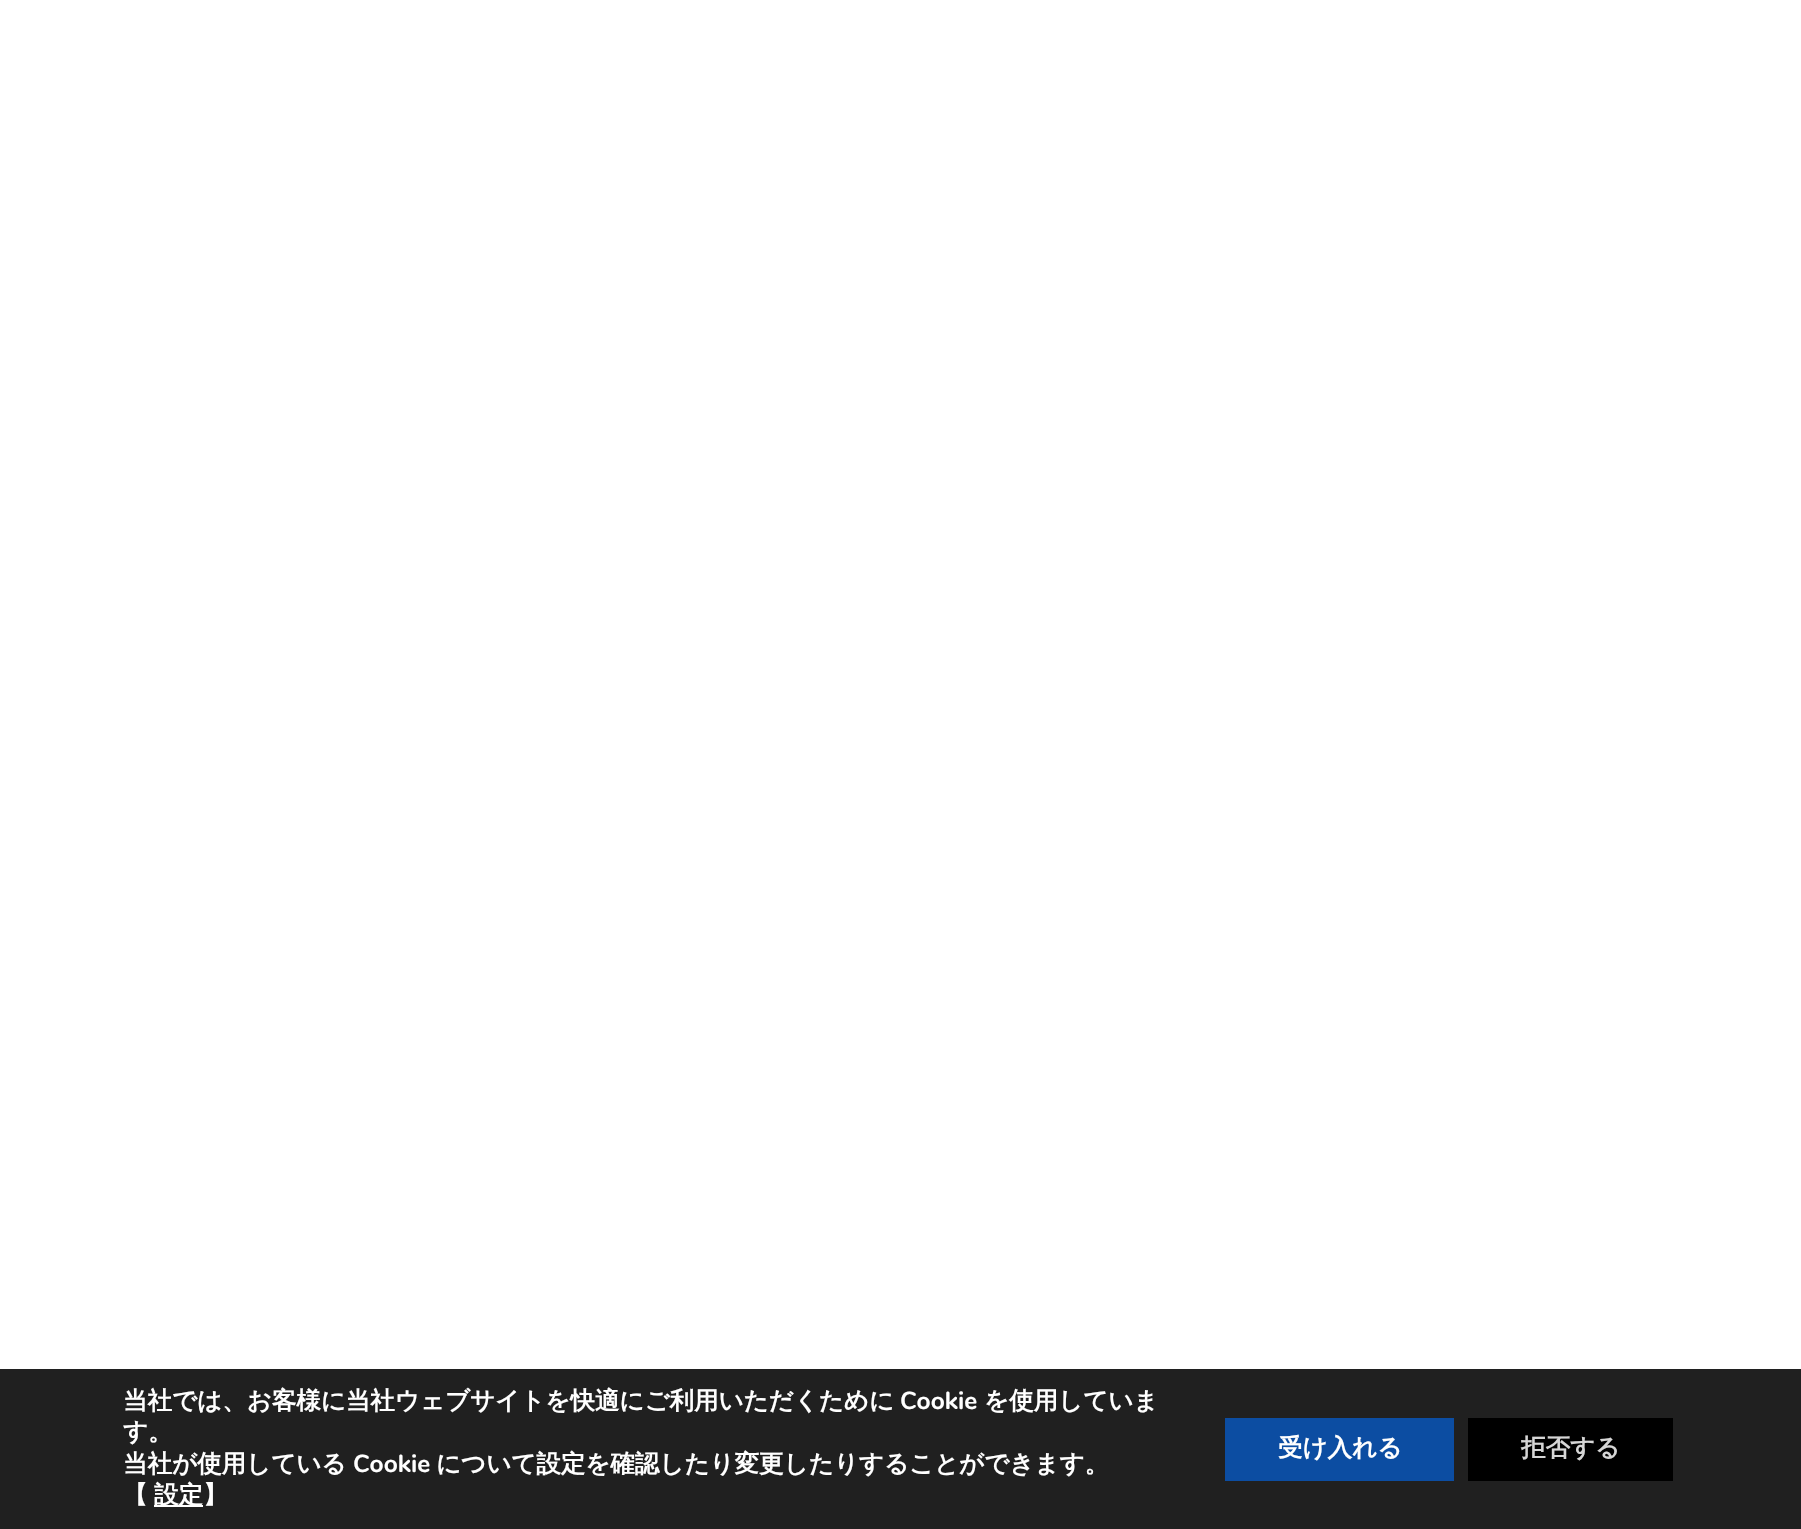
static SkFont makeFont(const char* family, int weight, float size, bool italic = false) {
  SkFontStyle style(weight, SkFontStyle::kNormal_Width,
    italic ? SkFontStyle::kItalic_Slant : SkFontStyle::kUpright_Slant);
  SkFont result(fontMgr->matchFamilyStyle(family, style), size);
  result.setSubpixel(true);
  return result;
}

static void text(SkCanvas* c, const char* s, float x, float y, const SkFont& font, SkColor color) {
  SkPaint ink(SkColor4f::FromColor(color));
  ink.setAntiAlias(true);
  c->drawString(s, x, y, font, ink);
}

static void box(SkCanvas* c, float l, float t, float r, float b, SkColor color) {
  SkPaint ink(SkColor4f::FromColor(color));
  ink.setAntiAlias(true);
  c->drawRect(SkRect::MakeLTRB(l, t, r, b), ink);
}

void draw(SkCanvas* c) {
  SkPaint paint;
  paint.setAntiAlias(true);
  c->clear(0xffffffff);
  box(c, 0, 1369, 1801, 1529, 0xff202020);
  SkFont face1 = makeFont("WenQuanYi Zen Hei", 700, 24.5f);
  text(c, "当社では、お客様に当社ウェブサイトを快適にご利用いただくために", 123, 1409, face1, 0xffffffff);
  SkFont face2 = makeFont("Nunito", 700, 24.5f);
  text(c, "Cookie", 900, 1409, face2, 0xffffffff);
  text(c, "を使用していま", 984, 1409, face1, 0xffffffff);
  text(c, "す。", 123, 1440, face1, 0xffffffff);
  text(c, "当社が使用している", 123, 1472, face1, 0xffffffff);
  text(c, "Cookie", 353, 1472, face2, 0xffffffff);
  text(c, "について設定を確認したり変更したりすることができます。", 436, 1472, face1, 0xffffffff);
  text(c, "【", 123, 1503, face1, 0xffffffff);
  box(c, 154, 1505, 203, 1507, 0xffffffff);
  text(c, "設定】", 154, 1503, face1, 0xffffffff);
  box(c, 1225, 1418, 1454, 1481, 0xff0c4da2);
  text(c, "受け入れる", 1278, 1456, face1, 0xffffffff);
  box(c, 1468, 1418, 1673, 1481, 0xff000000);
  text(c, "拒否する", 1521, 1456, face1, 0xffd6d6d6);
}
